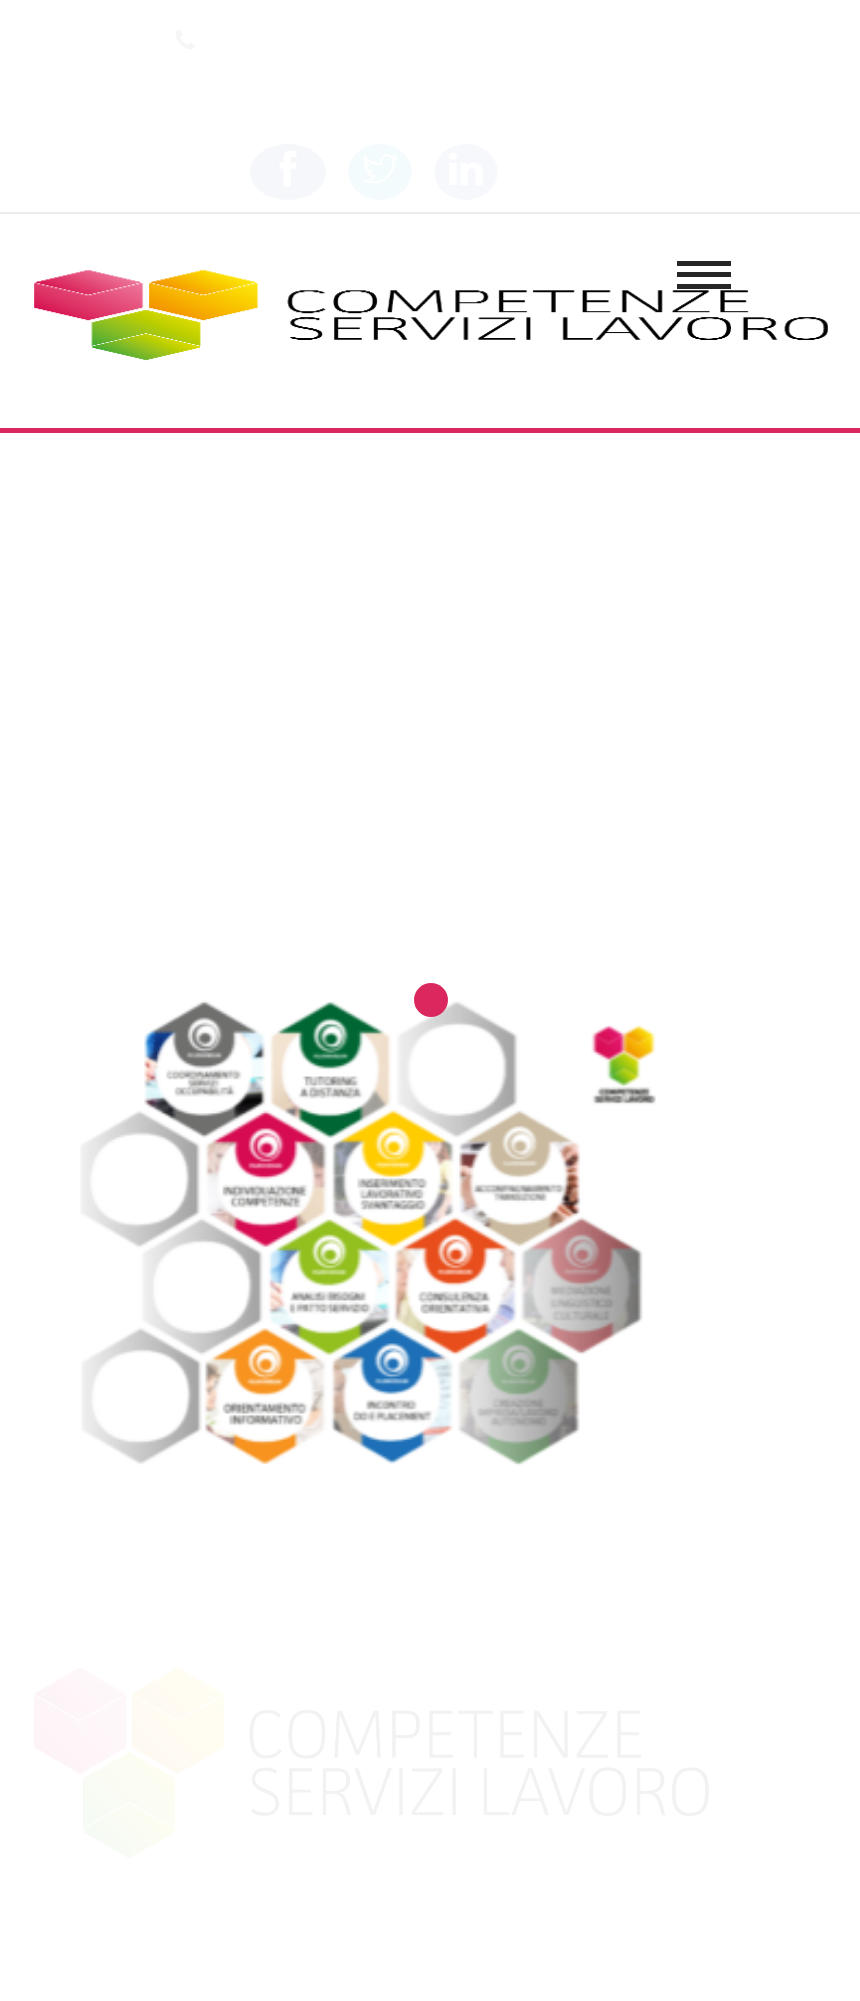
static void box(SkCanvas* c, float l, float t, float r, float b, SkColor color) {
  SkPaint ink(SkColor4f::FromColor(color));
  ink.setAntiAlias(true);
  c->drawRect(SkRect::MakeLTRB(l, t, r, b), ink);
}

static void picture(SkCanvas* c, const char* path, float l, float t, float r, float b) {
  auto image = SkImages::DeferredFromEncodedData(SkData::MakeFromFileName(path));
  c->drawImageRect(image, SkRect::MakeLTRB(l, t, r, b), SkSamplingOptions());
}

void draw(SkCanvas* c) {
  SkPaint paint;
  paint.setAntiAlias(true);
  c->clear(0xffffffff);
  picture(c, "img_01.png", 175, 30, 195, 50);
  paint.setColor(0xfff5f7fa);
  c->drawOval(SkRect::MakeLTRB(250, 144, 326, 200), paint);
  picture(c, "img_02.png", 279, 150, 297, 187);
  paint.setColor(0xfff4fbfd);
  c->drawOval(SkRect::MakeLTRB(348.5f, 144, 411.5f, 200), paint);
  picture(c, "img_03.png", 362, 154, 399, 184);
  paint.setColor(0xfff6f8fb);
  c->drawOval(SkRect::MakeLTRB(434.5f, 144, 497.5f, 200), paint);
  picture(c, "img_04.png", 448, 152, 483, 185);
  box(c, 0, 212, 860, 214, 0xffebebeb);
  box(c, 0, 428, 860, 433, 0xffda275d);
  picture(c, "img_05.png", 34, 269, 828, 361);
  box(c, 677, 272, 731, 277, 0xff262626);
  box(c, 677, 261, 731, 266, 0xff262626);
  box(c, 677, 284, 731, 289, 0xff262626);
  picture(c, "img_06.png", 80, 1000, 656, 1466);
  picture(c, "img_07.png", 34, 1667, 709, 1859);
  paint.setColor(0xffda275d);
  c->drawCircle(431, 1000, 17, paint);
}
